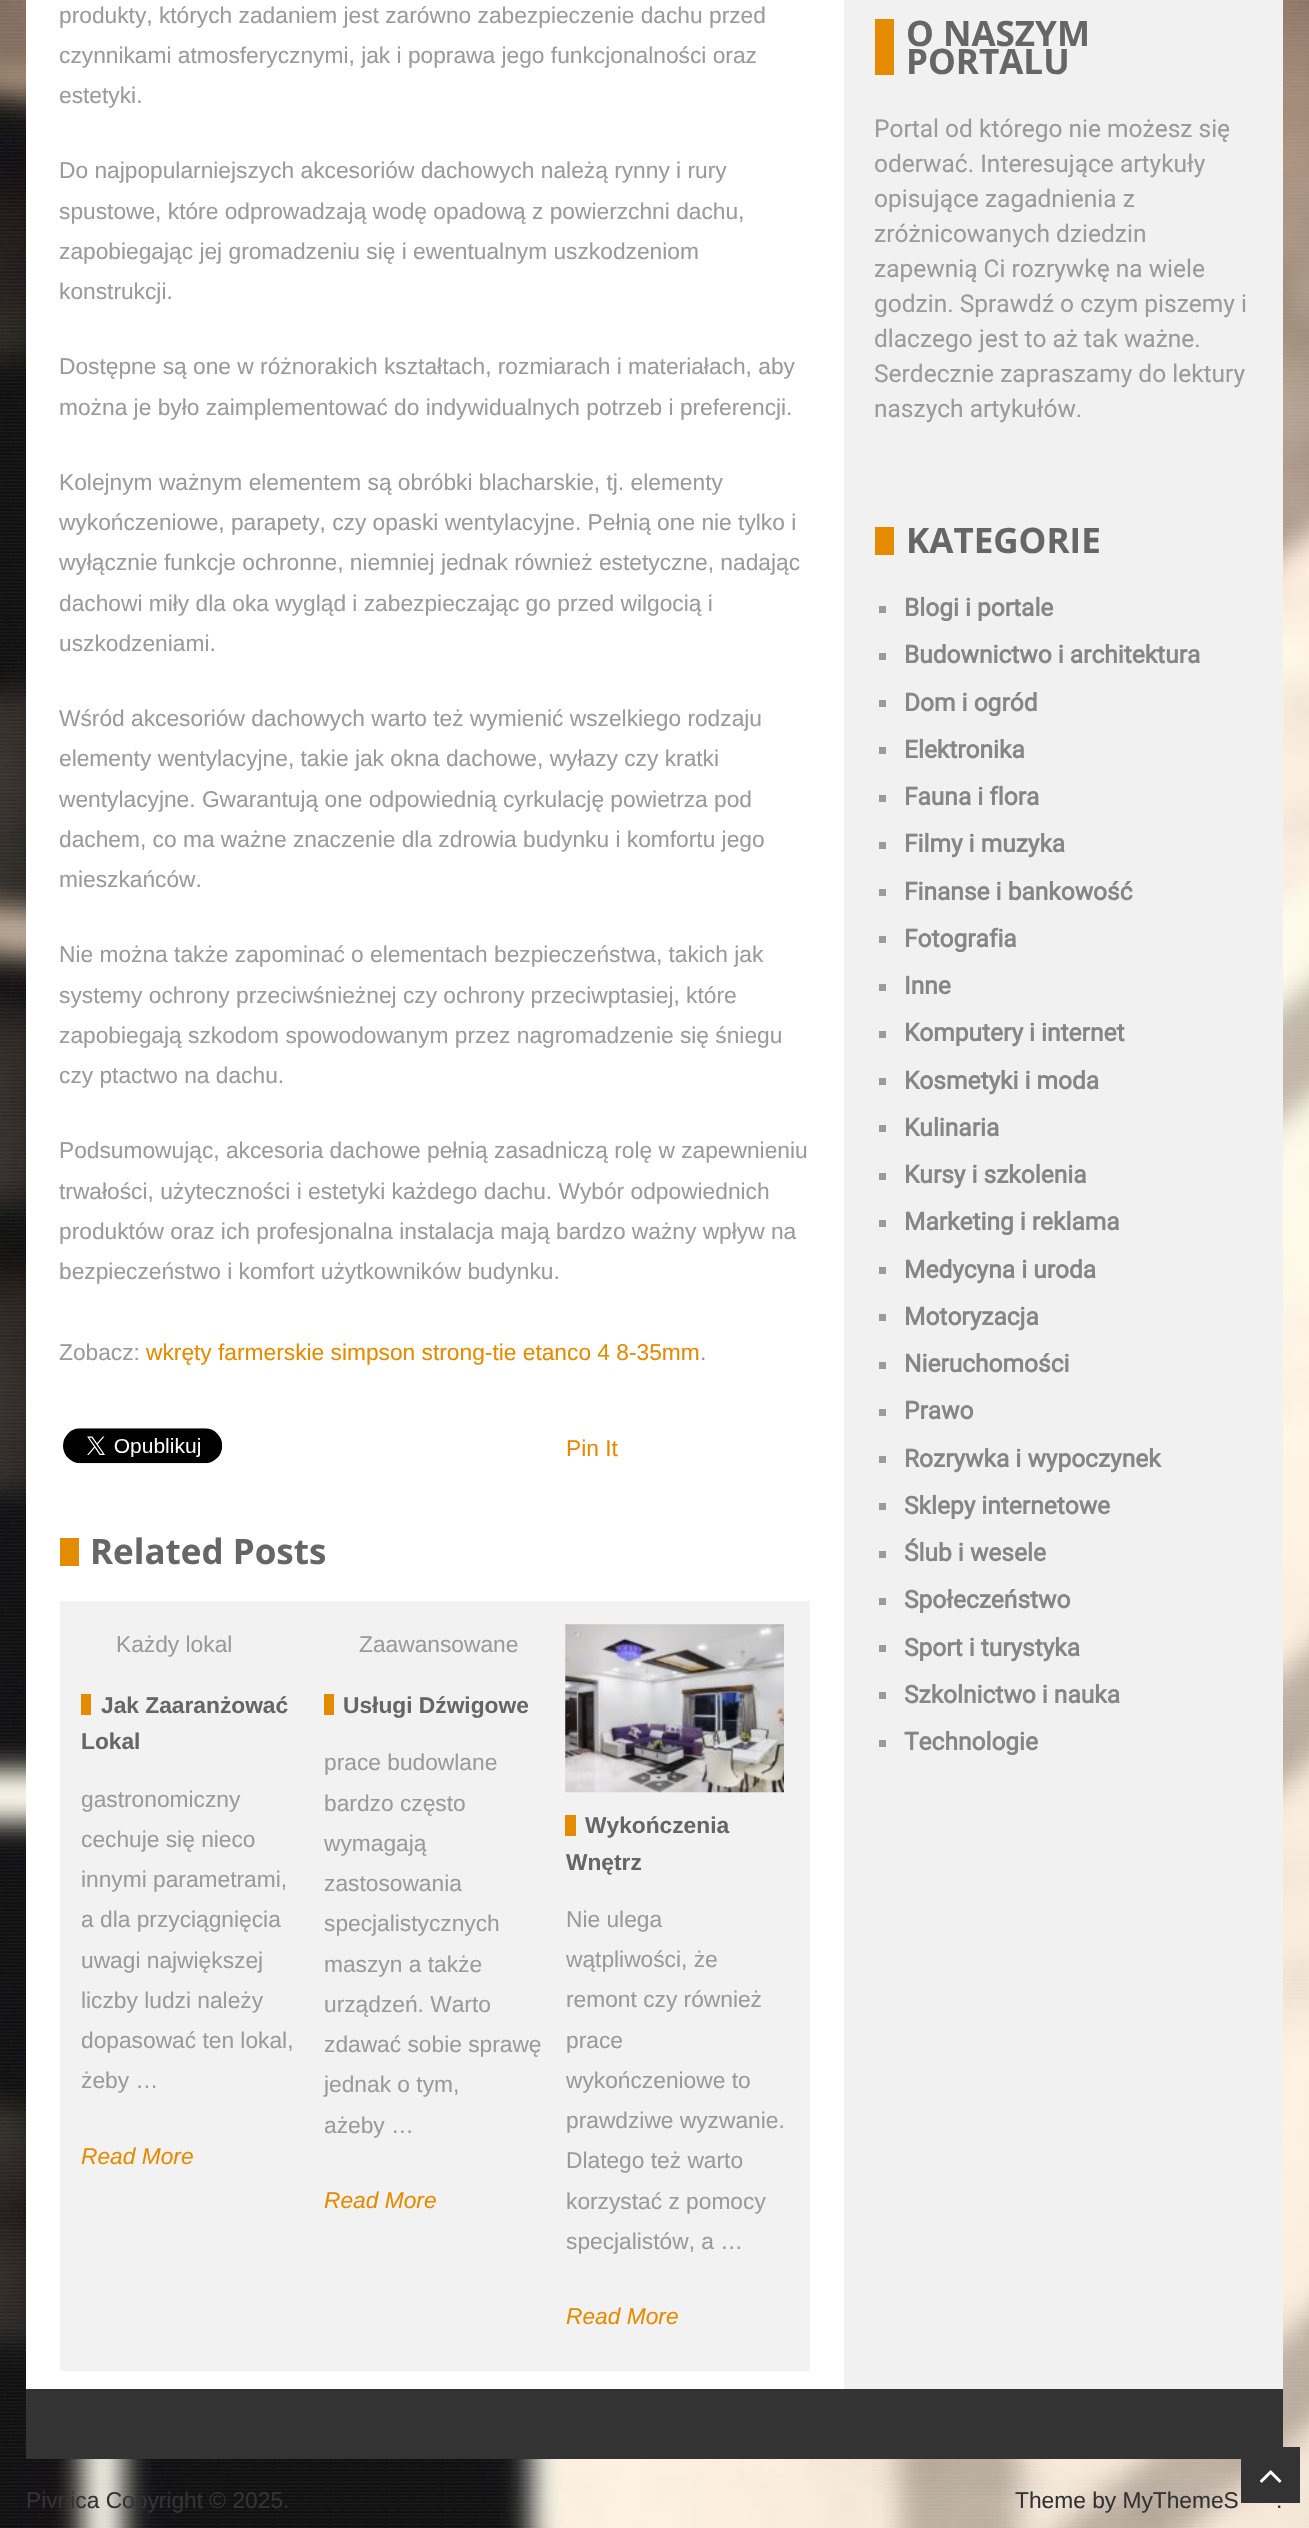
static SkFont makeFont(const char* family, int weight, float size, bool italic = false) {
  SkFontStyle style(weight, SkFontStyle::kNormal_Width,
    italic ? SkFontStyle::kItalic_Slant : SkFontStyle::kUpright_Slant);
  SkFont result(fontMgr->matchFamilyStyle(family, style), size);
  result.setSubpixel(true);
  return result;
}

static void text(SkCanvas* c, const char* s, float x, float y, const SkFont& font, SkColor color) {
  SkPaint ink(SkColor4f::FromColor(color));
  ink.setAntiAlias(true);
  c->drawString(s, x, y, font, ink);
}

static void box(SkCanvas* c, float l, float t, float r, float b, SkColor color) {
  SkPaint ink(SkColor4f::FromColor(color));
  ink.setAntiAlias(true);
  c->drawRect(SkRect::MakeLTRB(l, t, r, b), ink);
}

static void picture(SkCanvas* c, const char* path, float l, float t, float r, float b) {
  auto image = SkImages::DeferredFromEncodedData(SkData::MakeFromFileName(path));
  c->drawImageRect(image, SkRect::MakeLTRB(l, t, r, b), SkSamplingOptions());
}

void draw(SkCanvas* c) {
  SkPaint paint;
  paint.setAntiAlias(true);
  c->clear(0xffffffff);
  picture(c, "img_01.png", 0, 0, 1309, 2528);
  box(c, 26, 0, 844, 2389, 0xffffffff);
  SkFont face1 = makeFont("Liberation Sans", 400, 22.75f);
  text(c, "produkty, których zadaniem jest zarówno zabezpieczenie dachu przed", 59, 23, face1, 0xff9b9b9b);
  text(c, "czynnikami atmosferycznymi, jak i poprawa jego funkcjonalności oraz", 59, 63, face1, 0xff9b9b9b);
  text(c, "estetyki.", 59, 103, face1, 0xff9b9b9b);
  text(c, "Do najpopularniejszych akcesoriów dachowych należą rynny i rury", 59, 178, face1, 0xff9b9b9b);
  text(c, "spustowe, które odprowadzają wodę opadową z powierzchni dachu,", 59, 219, face1, 0xff9b9b9b);
  text(c, "zapobiegając jej gromadzeniu się i ewentualnym uszkodzeniom", 59, 259, face1, 0xff9b9b9b);
  text(c, "konstrukcji.", 59, 299, face1, 0xff9b9b9b);
  text(c, "Dostępne są one w różnorakich kształtach, rozmiarach i materiałach, aby", 59, 374, face1, 0xff9b9b9b);
  text(c, "można je było zaimplementować do indywidualnych potrzeb i preferencji.", 59, 415, face1, 0xff9b9b9b);
  text(c, "Kolejnym ważnym elementem są obróbki blacharskie, tj. elementy", 59, 490, face1, 0xff9b9b9b);
  text(c, "wykończeniowe, parapety, czy opaski wentylacyjne. Pełnią one nie tylko i", 59, 530, face1, 0xff9b9b9b);
  text(c, "wyłącznie funkcje ochronne, niemniej jednak również estetyczne, nadając", 59, 570, face1, 0xff9b9b9b);
  text(c, "dachowi miły dla oka wygląd i zabezpieczając go przed wilgocią i", 59, 611, face1, 0xff9b9b9b);
  text(c, "uszkodzeniami.", 59, 651, face1, 0xff9b9b9b);
  text(c, "Wśród akcesoriów dachowych warto też wymienić wszelkiego rodzaju", 59, 726, face1, 0xff9b9b9b);
  text(c, "elementy wentylacyjne, takie jak okna dachowe, wyłazy czy kratki", 59, 766, face1, 0xff9b9b9b);
  text(c, "wentylacyjne. Gwarantują one odpowiednią cyrkulację powietrza pod", 59, 807, face1, 0xff9b9b9b);
  text(c, "dachem, co ma ważne znaczenie dla zdrowia budynku i komfortu jego", 59, 847, face1, 0xff9b9b9b);
  text(c, "mieszkańców.", 59, 887, face1, 0xff9b9b9b);
  text(c, "Nie można także zapominać o elementach bezpieczeństwa, takich jak", 59, 962, face1, 0xff9b9b9b);
  text(c, "systemy ochrony przeciwśnieżnej czy ochrony przeciwptasiej, które", 59, 1003, face1, 0xff9b9b9b);
  text(c, "zapobiegają szkodom spowodowanym przez nagromadzenie się śniegu", 59, 1043, face1, 0xff9b9b9b);
  text(c, "czy ptactwo na dachu.", 59, 1083, face1, 0xff9b9b9b);
  text(c, "Podsumowując, akcesoria dachowe pełnią zasadniczą rolę w zapewnieniu", 59, 1158, face1, 0xff9b9b9b);
  text(c, "trwałości, użyteczności i estetyki każdego dachu. Wybór odpowiednich", 59, 1199, face1, 0xff9b9b9b);
  text(c, "produktów oraz ich profesjonalna instalacja mają bardzo ważny wpływ na", 59, 1239, face1, 0xff9b9b9b);
  text(c, "bezpieczeństwo i komfort użytkowników budynku.", 59, 1279, face1, 0xff9b9b9b);
  text(c, "Zobacz:", 59, 1360, face1, 0xff9b9b9b);
  text(c, "wkręty farmerskie simpson strong-tie etanco 4 8-35mm", 146, 1360, face1, 0xffe58b01);
  text(c, ".", 700, 1360, face1, 0xff9b9b9b);
  picture(c, "img_02.png", 63, 1428, 223, 1464);
  text(c, "Pin It", 566, 1456, face1, 0xffe58b01);
  box(c, 60, 1538, 79, 1566, 0xffe58b01);
  SkFont face2 = makeFont("Open Sans", 700, 35);
  text(c, "Related Posts", 90, 1564, face2, 0xff666666);
  box(c, 60, 1601, 810, 2371, 0xfff2f2f2);
  text(c, "Każdy lokal", 116, 1652, face1, 0xff9b9b9b);
  text(c, "gastronomiczny", 81, 1807, face1, 0xff9b9b9b);
  text(c, "cechuje się nieco", 81, 1847, face1, 0xff9b9b9b);
  text(c, "innymi parametrami,", 81, 1887, face1, 0xff9b9b9b);
  text(c, "a dla przyciągnięcia", 81, 1927, face1, 0xff9b9b9b);
  text(c, "uwagi największej", 81, 1968, face1, 0xff9b9b9b);
  text(c, "liczby ludzi należy", 81, 2008, face1, 0xff9b9b9b);
  text(c, "dopasować ten lokal,", 81, 2048, face1, 0xff9b9b9b);
  text(c, "żeby …", 81, 2088, face1, 0xff9b9b9b);
  box(c, 81, 1694, 91, 1715, 0xffe58b01);
  SkFont face3 = makeFont("Liberation Sans", 700, 22.75f);
  text(c, "Jak Zaaranżować", 101, 1713, face3, 0xff666666);
  text(c, "Lokal", 81, 1749, face3, 0xff666666);
  SkFont face4 = makeFont("Liberation Sans", 400, 22.75f, true);
  text(c, "Read More", 81, 2164, face4, 0xffe58b01);
  text(c, "Zaawansowane", 359, 1652, face1, 0xff9b9b9b);
  text(c, "prace budowlane", 324, 1770, face1, 0xff9b9b9b);
  text(c, "bardzo często", 324, 1811, face1, 0xff9b9b9b);
  text(c, "wymagają", 324, 1851, face1, 0xff9b9b9b);
  text(c, "zastosowania", 324, 1891, face1, 0xff9b9b9b);
  text(c, "specjalistycznych", 324, 1931, face1, 0xff9b9b9b);
  text(c, "maszyn a także", 324, 1972, face1, 0xff9b9b9b);
  text(c, "urządzeń. Warto", 324, 2012, face1, 0xff9b9b9b);
  text(c, "zdawać sobie sprawę", 324, 2052, face1, 0xff9b9b9b);
  text(c, "jednak o tym,", 324, 2092, face1, 0xff9b9b9b);
  text(c, "ażeby …", 324, 2133, face1, 0xff9b9b9b);
  box(c, 324, 1694, 334, 1715, 0xffe58b01);
  text(c, "Usługi Dźwigowe", 343, 1713, face3, 0xff666666);
  text(c, "Read More", 324, 2208, face4, 0xffe58b01);
  picture(c, "img_03.png", 565, 1624, 784, 1793);
  box(c, 565, 1815, 576, 1836, 0xffe58b01);
  text(c, "Wykończenia", 585, 1833, face3, 0xff666666);
  text(c, "Wnętrz", 566, 1870, face3, 0xff666666);
  text(c, "Nie ulega", 566, 1927, face1, 0xff9b9b9b);
  text(c, "wątpliwości, że", 566, 1967, face1, 0xff9b9b9b);
  text(c, "remont czy również", 566, 2007, face1, 0xff9b9b9b);
  text(c, "prace", 566, 2048, face1, 0xff9b9b9b);
  text(c, "wykończeniowe to", 566, 2088, face1, 0xff9b9b9b);
  text(c, "prawdziwe wyzwanie.", 566, 2128, face1, 0xff9b9b9b);
  text(c, "Dlatego też warto", 566, 2168, face1, 0xff9b9b9b);
  text(c, "korzystać z pomocy", 566, 2209, face1, 0xff9b9b9b);
  text(c, "specjalistów, a …", 566, 2249, face1, 0xff9b9b9b);
  text(c, "Read More", 566, 2324, face4, 0xffe58b01);
  box(c, 844, 0, 1283, 2389, 0xfff1f1f1);
  box(c, 875, 19, 894, 75, 0xffe58b01);
  text(c, "O NASZYM", 906, 46, face2, 0xff666666);
  text(c, "PORTALU", 906, 74, face2, 0xff666666);
  SkFont face5 = makeFont("Roboto", 400, 24.5f);
  text(c, "Portal od którego nie możesz się", 874, 137, face5, 0xff9b9b9b);
  text(c, "oderwać. Interesujące artykuły", 874, 172, face5, 0xff9b9b9b);
  text(c, "opisujące zagadnienia z", 874, 207, face5, 0xff9b9b9b);
  text(c, "zróżnicowanych dziedzin", 874, 242, face5, 0xff9b9b9b);
  text(c, "zapewnią Ci rozrywkę na wiele", 874, 277, face5, 0xff9b9b9b);
  text(c, "godzin. Sprawdź o czym piszemy i", 874, 312, face5, 0xff9b9b9b);
  text(c, "dlaczego jest to aż tak ważne.", 874, 347, face5, 0xff9b9b9b);
  text(c, "Serdecznie zapraszamy do lektury", 874, 382, face5, 0xff9b9b9b);
  text(c, "naszych artykułów.", 874, 417, face5, 0xff9b9b9b);
  box(c, 875, 527, 894, 555, 0xffe58b01);
  text(c, "KATEGORIE", 906, 553, face2, 0xff666666);
  box(c, 879, 606, 886, 613, 0xff9b9b9b);
  SkFont face6 = makeFont("Roboto", 700, 24.5f);
  text(c, "Blogi i portale", 904, 616, face6, 0xff868686);
  box(c, 879, 653, 886, 660, 0xff9b9b9b);
  text(c, "Budownictwo i architektura", 904, 663, face6, 0xff868686);
  box(c, 879, 700, 886, 707, 0xff9b9b9b);
  text(c, "Dom i ogród", 904, 711, face6, 0xff868686);
  box(c, 879, 747, 886, 754, 0xff9b9b9b);
  text(c, "Elektronika", 904, 758, face6, 0xff868686);
  box(c, 879, 795, 886, 802, 0xff9b9b9b);
  text(c, "Fauna i flora", 904, 805, face6, 0xff868686);
  box(c, 879, 842, 886, 849, 0xff9b9b9b);
  text(c, "Filmy i muzyka", 904, 852, face6, 0xff868686);
  box(c, 879, 889, 886, 896, 0xff9b9b9b);
  text(c, "Finanse i bankowość", 904, 900, face6, 0xff868686);
  box(c, 879, 936, 886, 943, 0xff9b9b9b);
  text(c, "Fotografia", 904, 947, face6, 0xff868686);
  box(c, 879, 984, 886, 991, 0xff9b9b9b);
  text(c, "Inne", 904, 994, face6, 0xff868686);
  box(c, 879, 1031, 886, 1038, 0xff9b9b9b);
  text(c, "Komputery i internet", 904, 1041, face6, 0xff868686);
  box(c, 879, 1078, 886, 1085, 0xff9b9b9b);
  text(c, "Kosmetyki i moda", 904, 1089, face6, 0xff868686);
  box(c, 879, 1125, 886, 1132, 0xff9b9b9b);
  text(c, "Kulinaria", 904, 1136, face6, 0xff868686);
  box(c, 879, 1173, 886, 1180, 0xff9b9b9b);
  text(c, "Kursy i szkolenia", 904, 1183, face6, 0xff868686);
  box(c, 879, 1220, 886, 1227, 0xff9b9b9b);
  text(c, "Marketing i reklama", 904, 1230, face6, 0xff868686);
  box(c, 879, 1267, 886, 1274, 0xff9b9b9b);
  text(c, "Medycyna i uroda", 904, 1278, face6, 0xff868686);
  box(c, 879, 1314, 886, 1321, 0xff9b9b9b);
  text(c, "Motoryzacja", 904, 1325, face6, 0xff868686);
  box(c, 879, 1362, 886, 1369, 0xff9b9b9b);
  text(c, "Nieruchomości", 904, 1372, face6, 0xff868686);
  box(c, 879, 1409, 886, 1416, 0xff9b9b9b);
  text(c, "Prawo", 904, 1419, face6, 0xff868686);
  box(c, 879, 1456, 886, 1463, 0xff9b9b9b);
  text(c, "Rozrywka i wypoczynek", 904, 1467, face6, 0xff868686);
  box(c, 879, 1503, 886, 1510, 0xff9b9b9b);
  text(c, "Sklepy internetowe", 904, 1514, face6, 0xff868686);
  box(c, 879, 1551, 886, 1558, 0xff9b9b9b);
  text(c, "Ślub i wesele", 904, 1561, face6, 0xff868686);
  box(c, 879, 1598, 886, 1605, 0xff9b9b9b);
  text(c, "Społeczeństwo", 904, 1608, face6, 0xff868686);
  box(c, 879, 1645, 886, 1652, 0xff9b9b9b);
  text(c, "Sport i turystyka", 904, 1656, face6, 0xff868686);
  box(c, 879, 1692, 886, 1699, 0xff9b9b9b);
  text(c, "Szkolnictwo i nauka", 904, 1703, face6, 0xff868686);
  box(c, 879, 1740, 886, 1747, 0xff9b9b9b);
  text(c, "Technologie", 904, 1750, face6, 0xff868686);
  box(c, 26, 2389, 1283, 2459, 0xff333333);
  text(c, "Pivnica Copyright © 2025.", 26, 2508, face1, 0xff333333);
  text(c, "Theme by MyThemeS", 1015, 2508, face1, 0xff333333);
  text(c, ".", 1276, 2508, face1, 0xff333333);
  box(c, 1241, 2447, 1300, 2503, 0xff333333);
  picture(c, "img_04.png", 1260, 2470, 1282, 2483);
}
